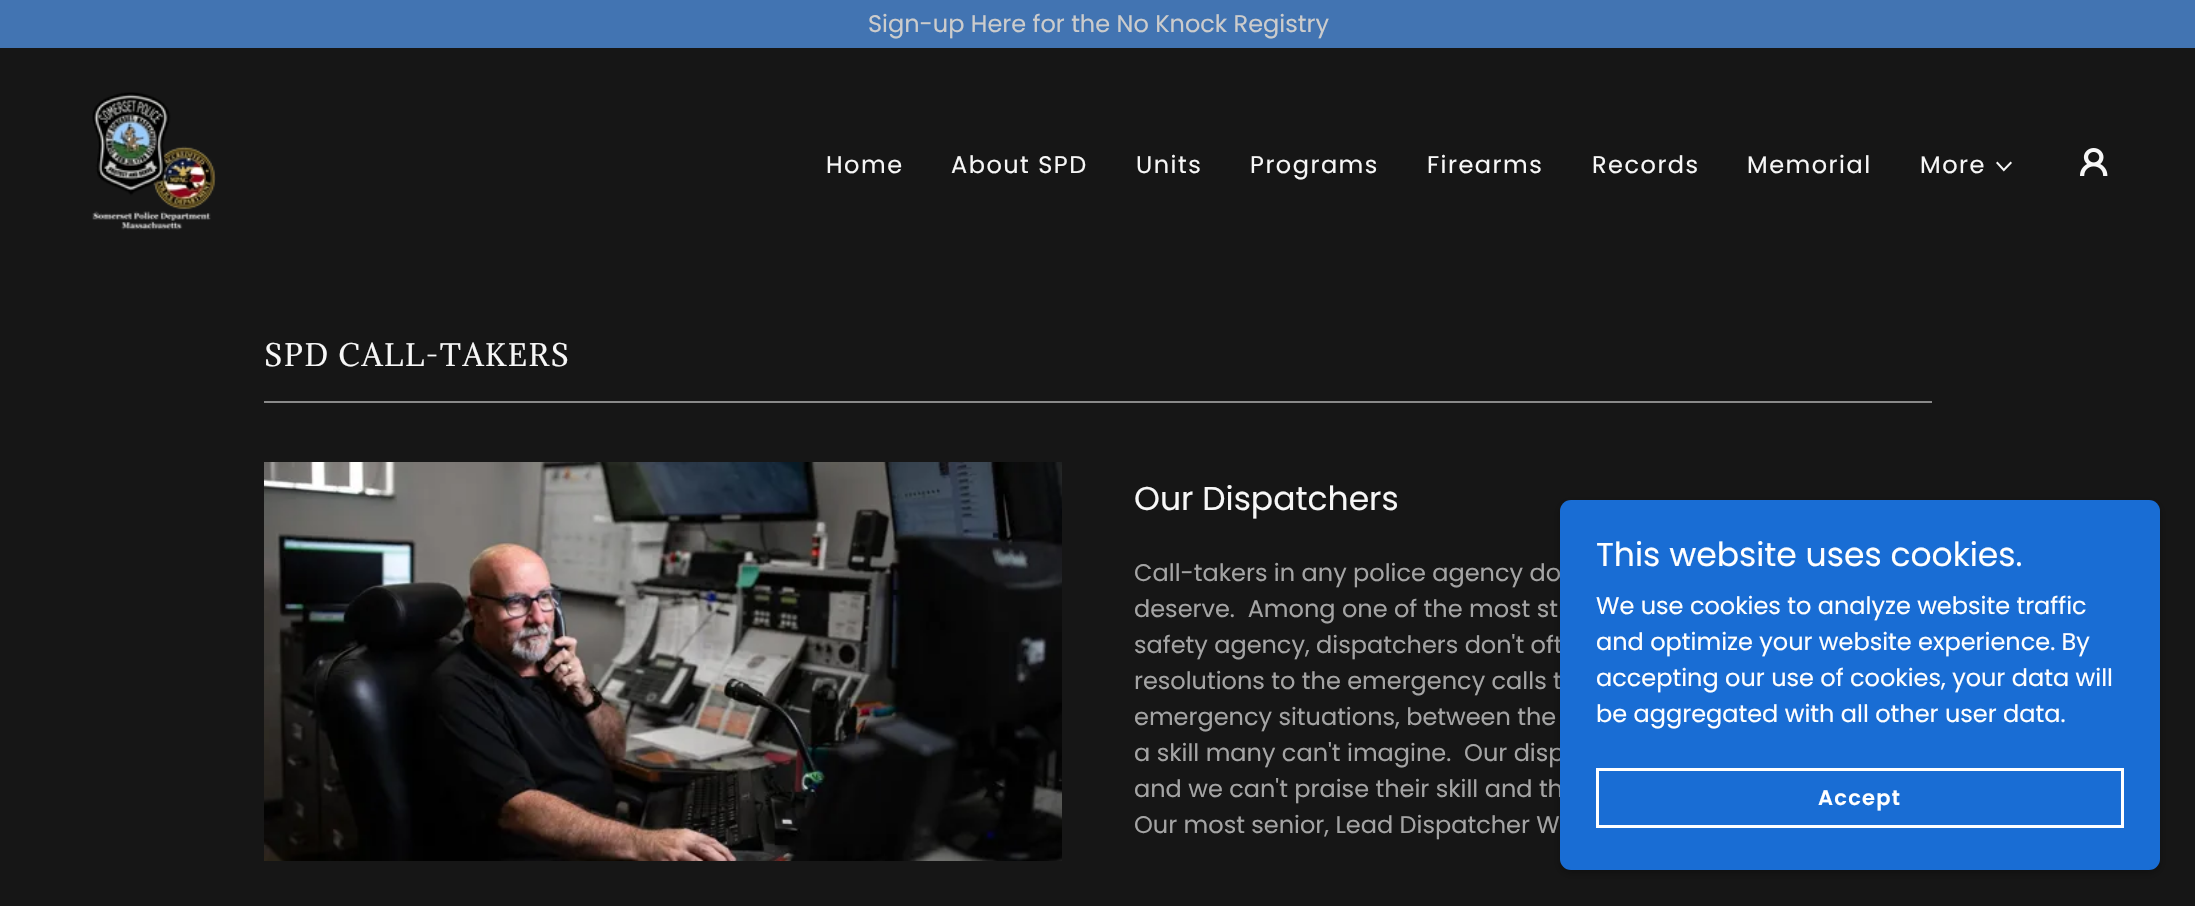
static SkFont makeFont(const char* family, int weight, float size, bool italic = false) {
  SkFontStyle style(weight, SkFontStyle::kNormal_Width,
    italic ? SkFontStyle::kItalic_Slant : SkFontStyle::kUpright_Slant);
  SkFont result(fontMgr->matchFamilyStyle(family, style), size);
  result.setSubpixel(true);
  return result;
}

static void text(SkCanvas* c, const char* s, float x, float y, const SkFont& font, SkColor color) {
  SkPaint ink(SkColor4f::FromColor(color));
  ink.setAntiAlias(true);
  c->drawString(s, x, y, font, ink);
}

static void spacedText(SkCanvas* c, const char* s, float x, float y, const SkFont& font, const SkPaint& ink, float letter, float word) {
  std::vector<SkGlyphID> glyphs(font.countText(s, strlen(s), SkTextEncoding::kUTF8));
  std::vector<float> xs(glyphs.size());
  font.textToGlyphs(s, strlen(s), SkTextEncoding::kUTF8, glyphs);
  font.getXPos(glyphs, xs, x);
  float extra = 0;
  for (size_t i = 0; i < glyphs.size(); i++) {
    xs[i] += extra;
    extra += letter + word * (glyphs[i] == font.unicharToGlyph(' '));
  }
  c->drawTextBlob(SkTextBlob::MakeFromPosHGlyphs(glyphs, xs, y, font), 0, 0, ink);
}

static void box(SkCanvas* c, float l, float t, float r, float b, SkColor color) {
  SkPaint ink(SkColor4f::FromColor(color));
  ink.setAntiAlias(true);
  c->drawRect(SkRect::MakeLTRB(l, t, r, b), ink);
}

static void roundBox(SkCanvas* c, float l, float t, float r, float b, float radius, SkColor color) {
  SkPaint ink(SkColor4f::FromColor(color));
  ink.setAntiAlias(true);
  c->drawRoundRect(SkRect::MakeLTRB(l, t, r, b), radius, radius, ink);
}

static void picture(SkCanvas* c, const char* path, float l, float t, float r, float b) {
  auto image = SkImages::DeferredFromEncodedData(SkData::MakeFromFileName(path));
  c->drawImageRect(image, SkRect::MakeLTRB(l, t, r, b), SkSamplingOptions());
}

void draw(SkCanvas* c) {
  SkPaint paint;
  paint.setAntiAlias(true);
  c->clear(0xff161616);
  box(c, 0, 0, 2195, 48, 0xff4274b2);
  SkFont face1 = makeFont("Poppins", 400, 24);
  text(c, "Sign-up Here for the No Knock Registry", 868, 32, face1, 0xffcccccc);
  picture(c, "img_01.png", 92, 92, 216, 230);
  paint.setColor(0xfff7f7f7);
  spacedText(c, "Home", 826, 173, face1, paint, 1.5f, 0);
  spacedText(c, "About SPD", 951, 173, face1, paint, 1.5f, 0);
  spacedText(c, "Units", 1136, 173, face1, paint, 1.5f, 0);
  spacedText(c, "Programs", 1250, 173, face1, paint, 1.5f, 0);
  spacedText(c, "Firearms", 1427, 173, face1, paint, 1.5f, 0);
  spacedText(c, "Records", 1592, 173, face1, paint, 1.5f, 0);
  spacedText(c, "Memorial", 1747, 173, face1, paint, 1.5f, 0);
  spacedText(c, "More", 1920, 173, face1, paint, 1.5f, 0);
  picture(c, "img_02.png", 1996, 161, 2012, 172);
  picture(c, "img_03.png", 2080, 148, 2108, 176);
  SkFont face2 = makeFont("Adamina", 400, 28.5f);
  spacedText(c, "SPD CALL-TAKERS", 264, 366, face2, paint, 1.5f, 0);
  box(c, 264, 401, 1932, 403, 0xff898989);
  picture(c, "img_04.png", 264, 462, 1062, 861);
  SkFont face3 = makeFont("Poppins", 400, 33);
  text(c, "Our Dispatchers", 1134, 510, face3, 0xfff7f7f7);
  text(c, "Call-takers in any police agency do", 1134, 581, face1, 0xffa4a4a4);
  text(c, "deserve.  Among one of the most st", 1134, 617, face1, 0xffa4a4a4);
  text(c, "safety agency, dispatchers don't oft", 1134, 653, face1, 0xffa4a4a4);
  text(c, "resolutions to the emergency calls t", 1134, 689, face1, 0xffa4a4a4);
  text(c, "emergency situations, between the", 1134, 725, face1, 0xffa4a4a4);
  text(c, "a skill many can't imagine.  Our disp", 1134, 761, face1, 0xffa4a4a4);
  text(c, "and we can't praise their skill and th", 1134, 797, face1, 0xffa4a4a4);
  text(c, "Our most senior, Lead Dispatcher W", 1134, 833, face1, 0xffa4a4a4);
  paint.setColor(0x4d000000);
  paint.setMaskFilter(SkMaskFilter::MakeBlur(kNormal_SkBlurStyle, 4.5f));
  c->drawRoundRect(SkRect::MakeLTRB(1560, 503, 2160, 873), 11, 11, paint);
  paint.setMaskFilter(nullptr);
  roundBox(c, 1560, 500, 2160, 870, 11, 0xff196dd4);
  text(c, "This website uses cookies.", 1596, 566, face3, 0xffffffff);
  text(c, "We use cookies to analyze website traffic", 1596, 614, face1, 0xffffffff);
  text(c, "and optimize your website experience. By", 1596, 650, face1, 0xffffffff);
  text(c, "accepting our use of cookies, your data will", 1596, 686, face1, 0xffffffff);
  text(c, "be aggregated with all other user data.", 1596, 722, face1, 0xffffffff);
  paint.setStyle(SkPaint::kStroke_Style);
  paint.setStrokeWidth(3);
  paint.setColor(0xffffffff);
  c->drawRect(SkRect::MakeLTRB(1597.5f, 769.5f, 2122.5f, 826.5f), paint);
  SkFont face4 = makeFont("Poppins", 600, 21);
  paint.setStyle(SkPaint::kFill_Style);
  spacedText(c, "Accept", 1818, 805, face4, paint, 1.25f, 0);
}
